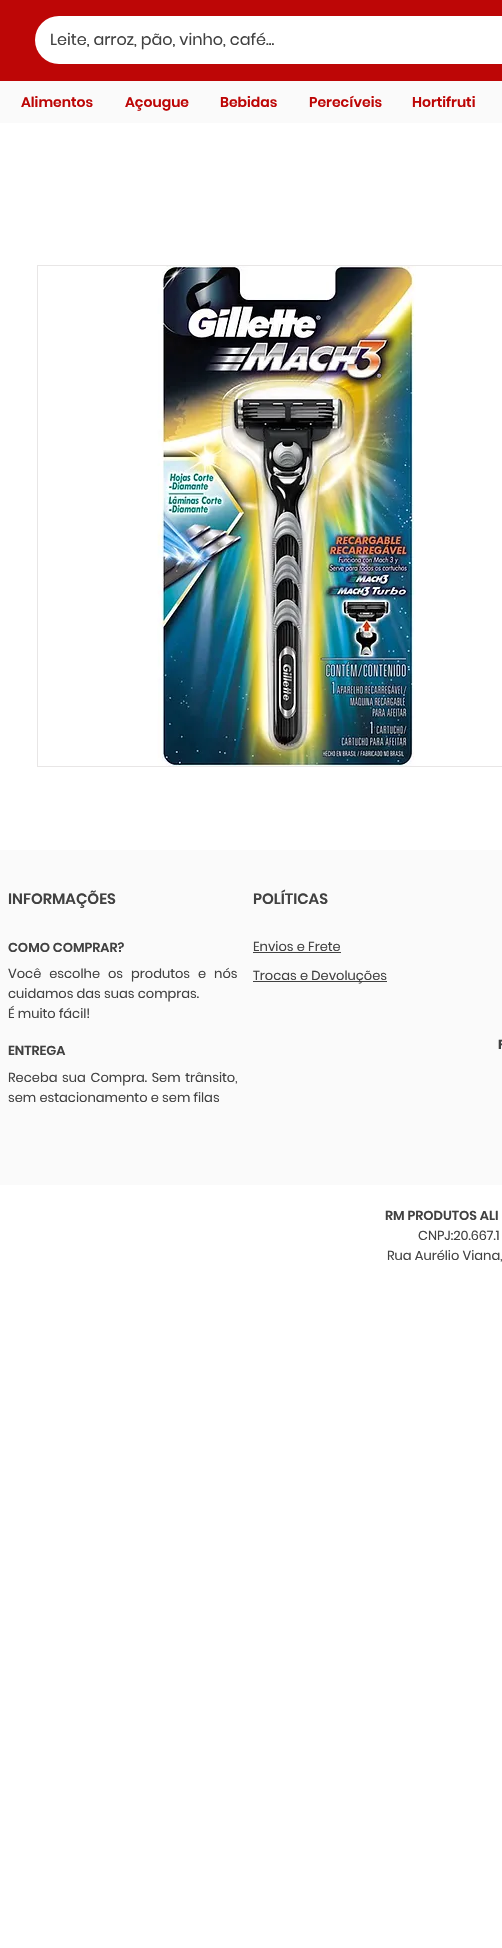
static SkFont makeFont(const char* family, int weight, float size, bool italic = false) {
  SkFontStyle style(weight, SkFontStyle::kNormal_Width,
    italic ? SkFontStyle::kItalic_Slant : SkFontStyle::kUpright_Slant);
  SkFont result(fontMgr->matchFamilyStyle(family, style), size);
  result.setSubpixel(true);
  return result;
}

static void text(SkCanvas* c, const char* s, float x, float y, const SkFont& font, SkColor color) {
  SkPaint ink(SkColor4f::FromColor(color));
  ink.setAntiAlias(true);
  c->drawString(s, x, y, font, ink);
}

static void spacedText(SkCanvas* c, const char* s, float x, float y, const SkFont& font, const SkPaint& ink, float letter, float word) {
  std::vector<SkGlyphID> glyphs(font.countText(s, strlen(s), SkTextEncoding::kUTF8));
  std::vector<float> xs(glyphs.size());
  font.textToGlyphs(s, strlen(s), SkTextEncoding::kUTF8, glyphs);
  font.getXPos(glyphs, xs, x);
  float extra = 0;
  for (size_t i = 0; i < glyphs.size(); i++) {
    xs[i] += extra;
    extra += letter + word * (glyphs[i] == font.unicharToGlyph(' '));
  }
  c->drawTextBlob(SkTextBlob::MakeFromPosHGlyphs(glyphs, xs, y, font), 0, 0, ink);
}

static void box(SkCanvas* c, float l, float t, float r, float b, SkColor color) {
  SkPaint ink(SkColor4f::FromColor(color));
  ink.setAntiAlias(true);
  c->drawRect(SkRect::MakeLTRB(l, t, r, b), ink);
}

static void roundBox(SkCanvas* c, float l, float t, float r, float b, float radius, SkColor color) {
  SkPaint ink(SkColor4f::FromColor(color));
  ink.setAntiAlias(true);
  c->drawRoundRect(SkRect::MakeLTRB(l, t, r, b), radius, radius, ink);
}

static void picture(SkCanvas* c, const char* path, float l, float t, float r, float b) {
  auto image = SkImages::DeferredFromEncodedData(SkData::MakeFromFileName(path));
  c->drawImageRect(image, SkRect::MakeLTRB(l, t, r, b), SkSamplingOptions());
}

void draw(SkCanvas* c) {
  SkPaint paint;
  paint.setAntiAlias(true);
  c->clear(0xffffffff);
  box(c, 0, 0, 502, 81, 0xffbd0606);
  roundBox(c, 35, 16, 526, 64, 24, 0xffffffff);
  SkFont face1 = makeFont("Poppins", 400, 16);
  text(c, "Leite, arroz, pão, vinho, café...", 50, 45, face1, 0xff414141);
  box(c, 0, 81, 502, 123, 0xfffafafa);
  SkFont face2 = makeFont("Poppins", 600, 14);
  text(c, "Alimentos", 21, 107, face2, 0xffbd0606);
  text(c, "Açougue", 125, 107, face2, 0xffbd0606);
  text(c, "Bebidas", 220, 107, face2, 0xffbd0606);
  text(c, "Perecíveis", 309, 107, face2, 0xffbd0606);
  text(c, "Hortifruti", 412, 107, face2, 0xffbd0606);
  paint.setStyle(SkPaint::kStroke_Style);
  paint.setStrokeWidth(1);
  paint.setColor(0xffe8e6e6);
  c->drawRect(SkRect::MakeLTRB(37.5f, 265.5f, 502.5f, 766.5f), paint);
  picture(c, "img_01.png", 157, 266, 416, 766);
  box(c, 0, 850, 502, 1185, 0xfffafafa);
  SkFont face3 = makeFont("Poppins", 600, 15);
  text(c, "INFORMAÇÕES", 8, 904, face3, 0xff414141);
  SkFont face4 = makeFont("Poppins", 600, 13);
  text(c, "COMO COMPRAR?", 8, 952, face4, 0xff414141);
  SkFont face5 = makeFont("Poppins", 400, 13);
  paint.setStyle(SkPaint::kFill_Style);
  paint.setColor(0xff414141);
  spacedText(c, "Você escolhe os produtos e nós", 8, 978, face5, paint, 0, 4.75f);
  text(c, "cuidamos das suas compras.", 8, 998, face5, 0xff414141);
  text(c, "É muito fácil!", 8, 1018, face5, 0xff414141);
  text(c, "ENTREGA", 8, 1055, face4, 0xff414141);
  spacedText(c, "Receba sua Compra. Sem trânsito,", 8, 1082, face5, paint, 0, 1.5f);
  text(c, "sem estacionamento e sem filas", 8, 1102, face5, 0xff414141);
  text(c, "POLÍTICAS", 253, 904, face3, 0xff414141);
  text(c, "Envios e Frete", 253, 951, face5, 0xff414141);
  box(c, 253, 952, 341, 953, 0xff414141);
  box(c, 253, 981, 387, 982, 0xff414141);
  text(c, "Trocas e Devoluções", 253, 980, face5, 0xff414141);
  SkFont face6 = makeFont("Poppins", 700, 13);
  text(c, "F", 498, 1049, face6, 0xff414141);
  text(c, "RM PRODUTOS ALI", 385, 1220, face4, 0xff414141);
  text(c, "CNPJ:20.667.1", 418, 1240, face5, 0xff414141);
  text(c, "Rua Aurélio Viana,", 387, 1260, face5, 0xff414141);
}
